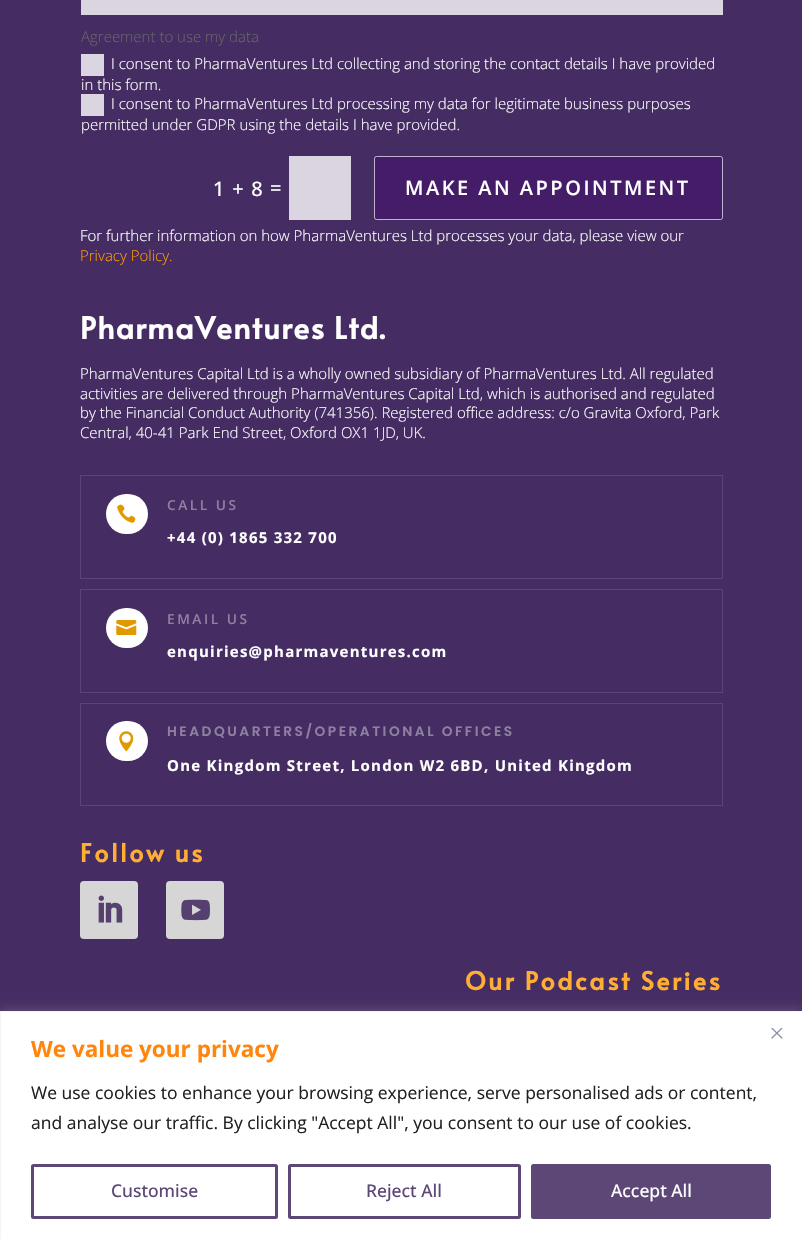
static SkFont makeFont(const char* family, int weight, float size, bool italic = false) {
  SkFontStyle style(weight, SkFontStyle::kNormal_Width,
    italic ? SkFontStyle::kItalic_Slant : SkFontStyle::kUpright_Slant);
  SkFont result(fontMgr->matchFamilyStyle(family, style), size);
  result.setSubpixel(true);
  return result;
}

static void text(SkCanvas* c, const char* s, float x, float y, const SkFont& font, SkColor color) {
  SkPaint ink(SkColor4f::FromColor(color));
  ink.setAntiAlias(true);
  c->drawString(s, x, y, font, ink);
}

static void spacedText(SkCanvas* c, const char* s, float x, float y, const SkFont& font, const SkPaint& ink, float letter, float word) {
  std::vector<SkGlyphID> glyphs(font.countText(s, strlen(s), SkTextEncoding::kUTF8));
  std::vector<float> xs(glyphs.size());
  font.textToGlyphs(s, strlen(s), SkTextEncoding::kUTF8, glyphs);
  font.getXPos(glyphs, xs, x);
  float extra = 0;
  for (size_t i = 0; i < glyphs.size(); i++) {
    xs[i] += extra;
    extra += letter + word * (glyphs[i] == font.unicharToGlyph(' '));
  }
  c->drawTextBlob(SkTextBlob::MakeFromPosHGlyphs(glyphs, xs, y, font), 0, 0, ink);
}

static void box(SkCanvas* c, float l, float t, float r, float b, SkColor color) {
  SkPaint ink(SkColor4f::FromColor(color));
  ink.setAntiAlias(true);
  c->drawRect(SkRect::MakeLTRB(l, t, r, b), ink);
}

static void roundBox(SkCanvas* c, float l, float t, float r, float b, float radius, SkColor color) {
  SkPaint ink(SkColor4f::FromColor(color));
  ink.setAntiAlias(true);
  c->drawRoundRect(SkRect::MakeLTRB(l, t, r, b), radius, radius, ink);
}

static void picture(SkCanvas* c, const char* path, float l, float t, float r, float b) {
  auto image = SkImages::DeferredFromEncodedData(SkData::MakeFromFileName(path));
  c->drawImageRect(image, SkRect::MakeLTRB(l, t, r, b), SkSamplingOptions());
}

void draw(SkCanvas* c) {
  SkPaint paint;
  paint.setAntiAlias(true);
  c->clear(0xff452c62);
  box(c, 81, 0, 723, 15, 0xffdad5e0);
  SkFont face1 = makeFont("Open Sans", 300, 15);
  text(c, "Agreement to use my data", 81, 42, face1, 0xff666666);
  box(c, 81, 54, 104, 76, 0xffdad5e0);
  text(c, "I consent to PharmaVentures Ltd collecting and storing the contact details I have provided", 111, 69, face1, 0xffffffff);
  text(c, "in this form.", 81, 90, face1, 0xffffffff);
  box(c, 81, 94, 104, 116, 0xffdad5e0);
  text(c, "I consent to PharmaVentures Ltd processing my data for legitimate business purposes", 111, 109, face1, 0xffffffff);
  text(c, "permitted under GDPR using the details I have provided.", 81, 130, face1, 0xffffffff);
  SkFont face2 = makeFont("Open Sans", 500, 20);
  paint.setColor(0xffffffff);
  spacedText(c, "1 + 8", 213, 196, face2, paint, 1.25f, 0);
  spacedText(c, "=", 270, 195, face2, paint, 1.25f, 0);
  box(c, 289, 156, 351, 220, 0xffdad5e0);
  roundBox(c, 374, 156, 723, 220, 2.5f, 0xff441c68);
  paint.setStyle(SkPaint::kStroke_Style);
  paint.setStrokeWidth(1);
  paint.setColor(0xa8ffffff);
  c->drawRoundRect(SkRect::MakeLTRB(374.5f, 156.5f, 722.5f, 219.5f), 2, 2, paint);
  SkFont face3 = makeFont("Open Sans", 600, 20);
  paint.setStyle(SkPaint::kFill_Style);
  paint.setColor(0xffffffff);
  spacedText(c, "MAKE AN APPOINTMENT", 405, 195, face3, paint, 2.5f, 0);
  text(c, "For further information on how PharmaVentures Ltd processes your data, please view our", 80, 241, face1, 0xffffffff);
  text(c, "Privacy Policy.", 80, 261, face1, 0xffff9900);
  SkFont face4 = makeFont("Alata", 700, 30);
  spacedText(c, "PharmaVentures Ltd.", 80, 339, face4, paint, 1.25f, 0);
  text(c, "PharmaVentures Capital Ltd is a wholly owned subsidiary of PharmaVentures Ltd. All regulated", 80, 379, face1, 0xffffffff);
  text(c, "activities are delivered through PharmaVentures Capital Ltd, which is authorised and regulated", 80, 399, face1, 0xffffffff);
  text(c, "by the Financial Conduct Authority (741356). Registered office address: c/o Gravita Oxford, Park", 80, 418, face1, 0xffffffff);
  text(c, "Central, 40-41 Park End Street, Oxford OX1 1JD, UK.", 80, 438, face1, 0xffffffff);
  paint.setStyle(SkPaint::kStroke_Style);
  paint.setColor(0xff5b4575);
  c->drawRect(SkRect::MakeLTRB(80.5f, 475.5f, 722.5f, 578.5f), paint);
  roundBox(c, 106, 494, 148, 534, 20, 0xffffffff);
  picture(c, "img_01.png", 117, 504, 136, 523);
  SkFont face5 = makeFont("Open Sans", 600, 13.75f);
  paint.setStyle(SkPaint::kFill_Style);
  paint.setColor(0xff8f80a1);
  spacedText(c, "CALL US", 167, 510, face5, paint, 2.5f, 0);
  SkFont face6 = makeFont("Open Sans", 700, 15);
  paint.setColor(0xffffffff);
  spacedText(c, "+44 (0) 1865 332 700", 167, 543, face6, paint, 1.25f, 0);
  paint.setStyle(SkPaint::kStroke_Style);
  paint.setColor(0xff5b4575);
  c->drawRect(SkRect::MakeLTRB(80.5f, 589.5f, 722.5f, 692.5f), paint);
  roundBox(c, 106, 608, 148, 648, 20, 0xffffffff);
  picture(c, "img_02.png", 116, 620, 137, 635);
  paint.setStyle(SkPaint::kFill_Style);
  paint.setColor(0xff8f80a1);
  spacedText(c, "EMAIL US", 167, 624, face5, paint, 2.5f, 0);
  paint.setColor(0xffffffff);
  spacedText(c, "enquiries@pharmaventures.com", 167, 657, face6, paint, 1.25f, 0);
  paint.setStyle(SkPaint::kStroke_Style);
  paint.setColor(0xff5b4575);
  c->drawRect(SkRect::MakeLTRB(80.5f, 703.5f, 722.5f, 805.5f), paint);
  roundBox(c, 106, 721, 148, 761, 20, 0xffffffff);
  picture(c, "img_03.png", 119, 731, 134, 752);
  SkFont face7 = makeFont("Poppins", 600, 13.75f);
  paint.setStyle(SkPaint::kFill_Style);
  paint.setColor(0xff8f80a1);
  spacedText(c, "HEADQUARTERS/OPERATIONAL OFFICES", 167, 736, face7, paint, 2.5f, 0);
  paint.setColor(0xffffffff);
  spacedText(c, "One Kingdom Street, London W2 6BD, United Kingdom", 167, 771, face6, paint, 1.25f, 0);
  SkFont face8 = makeFont("Alata", 700, 25);
  paint.setColor(0xffffad33);
  spacedText(c, "Follow us", 80, 862, face8, paint, 2.5f, 0);
  roundBox(c, 80, 881, 138, 939, 4, 0xffd6d6d6);
  picture(c, "img_04.png", 98, 895, 123, 923);
  roundBox(c, 166, 881, 224, 939, 4, 0xffd6d6d6);
  picture(c, "img_05.png", 181, 899, 210, 921);
  spacedText(c, "Our Podcast Series", 465, 990, face8, paint, 2.5f, 0);
  paint.setColor(0x4dacabab);
  paint.setMaskFilter(SkMaskFilter::MakeBlur(kNormal_SkBlurStyle, 6));
  c->drawRect(SkRect::MakeLTRB(0, 1010, 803, 1239), paint);
  paint.setMaskFilter(nullptr);
  paint.setColor(0xffffffff);
  c->drawRect(SkRect::MakeLTRB(0.5f, 1011.5f, 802.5f, 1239.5f), paint);
  paint.setStyle(SkPaint::kStroke_Style);
  paint.setColor(0xfff4f4f4);
  c->drawRect(SkRect::MakeLTRB(0.5f, 1011.5f, 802.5f, 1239.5f), paint);
  picture(c, "img_06.png", 771, 1028, 783, 1039);
  SkFont face9 = makeFont("Open Sans", 700, 22.5f);
  text(c, "We value your privacy", 31, 1057, face9, 0xffff850d);
  SkFont face10 = makeFont("Open Sans", 400, 17.5f);
  text(c, "We use cookies to enhance your browsing experience, serve personalised ads or content,", 31, 1099, face10, 0xff212121);
  text(c, "and analyse our traffic. By clicking \"Accept All\", you consent to our use of cookies.", 31, 1129, face10, 0xff212121);
  paint.setStrokeWidth(3);
  paint.setColor(0xff5c4777);
  c->drawRoundRect(SkRect::MakeLTRB(32.5f, 1165.5f, 276.5f, 1217.5f), 1, 1, paint);
  SkFont face11 = makeFont("Open Sans", 500, 17.5f);
  text(c, "Customise", 111, 1197, face11, 0xff5c4777);
  c->drawRoundRect(SkRect::MakeLTRB(289.5f, 1165.5f, 519.5f, 1217.5f), 1, 1, paint);
  text(c, "Reject All", 366, 1197, face11, 0xff5c4777);
  paint.setStyle(SkPaint::kFill_Style);
  c->drawRoundRect(SkRect::MakeLTRB(532.5f, 1165.5f, 769.5f, 1217.5f), 1, 1, paint);
  paint.setStyle(SkPaint::kStroke_Style);
  c->drawRoundRect(SkRect::MakeLTRB(532.5f, 1165.5f, 769.5f, 1217.5f), 1, 1, paint);
  text(c, "Accept All", 611, 1197, face11, 0xffffffff);
}
